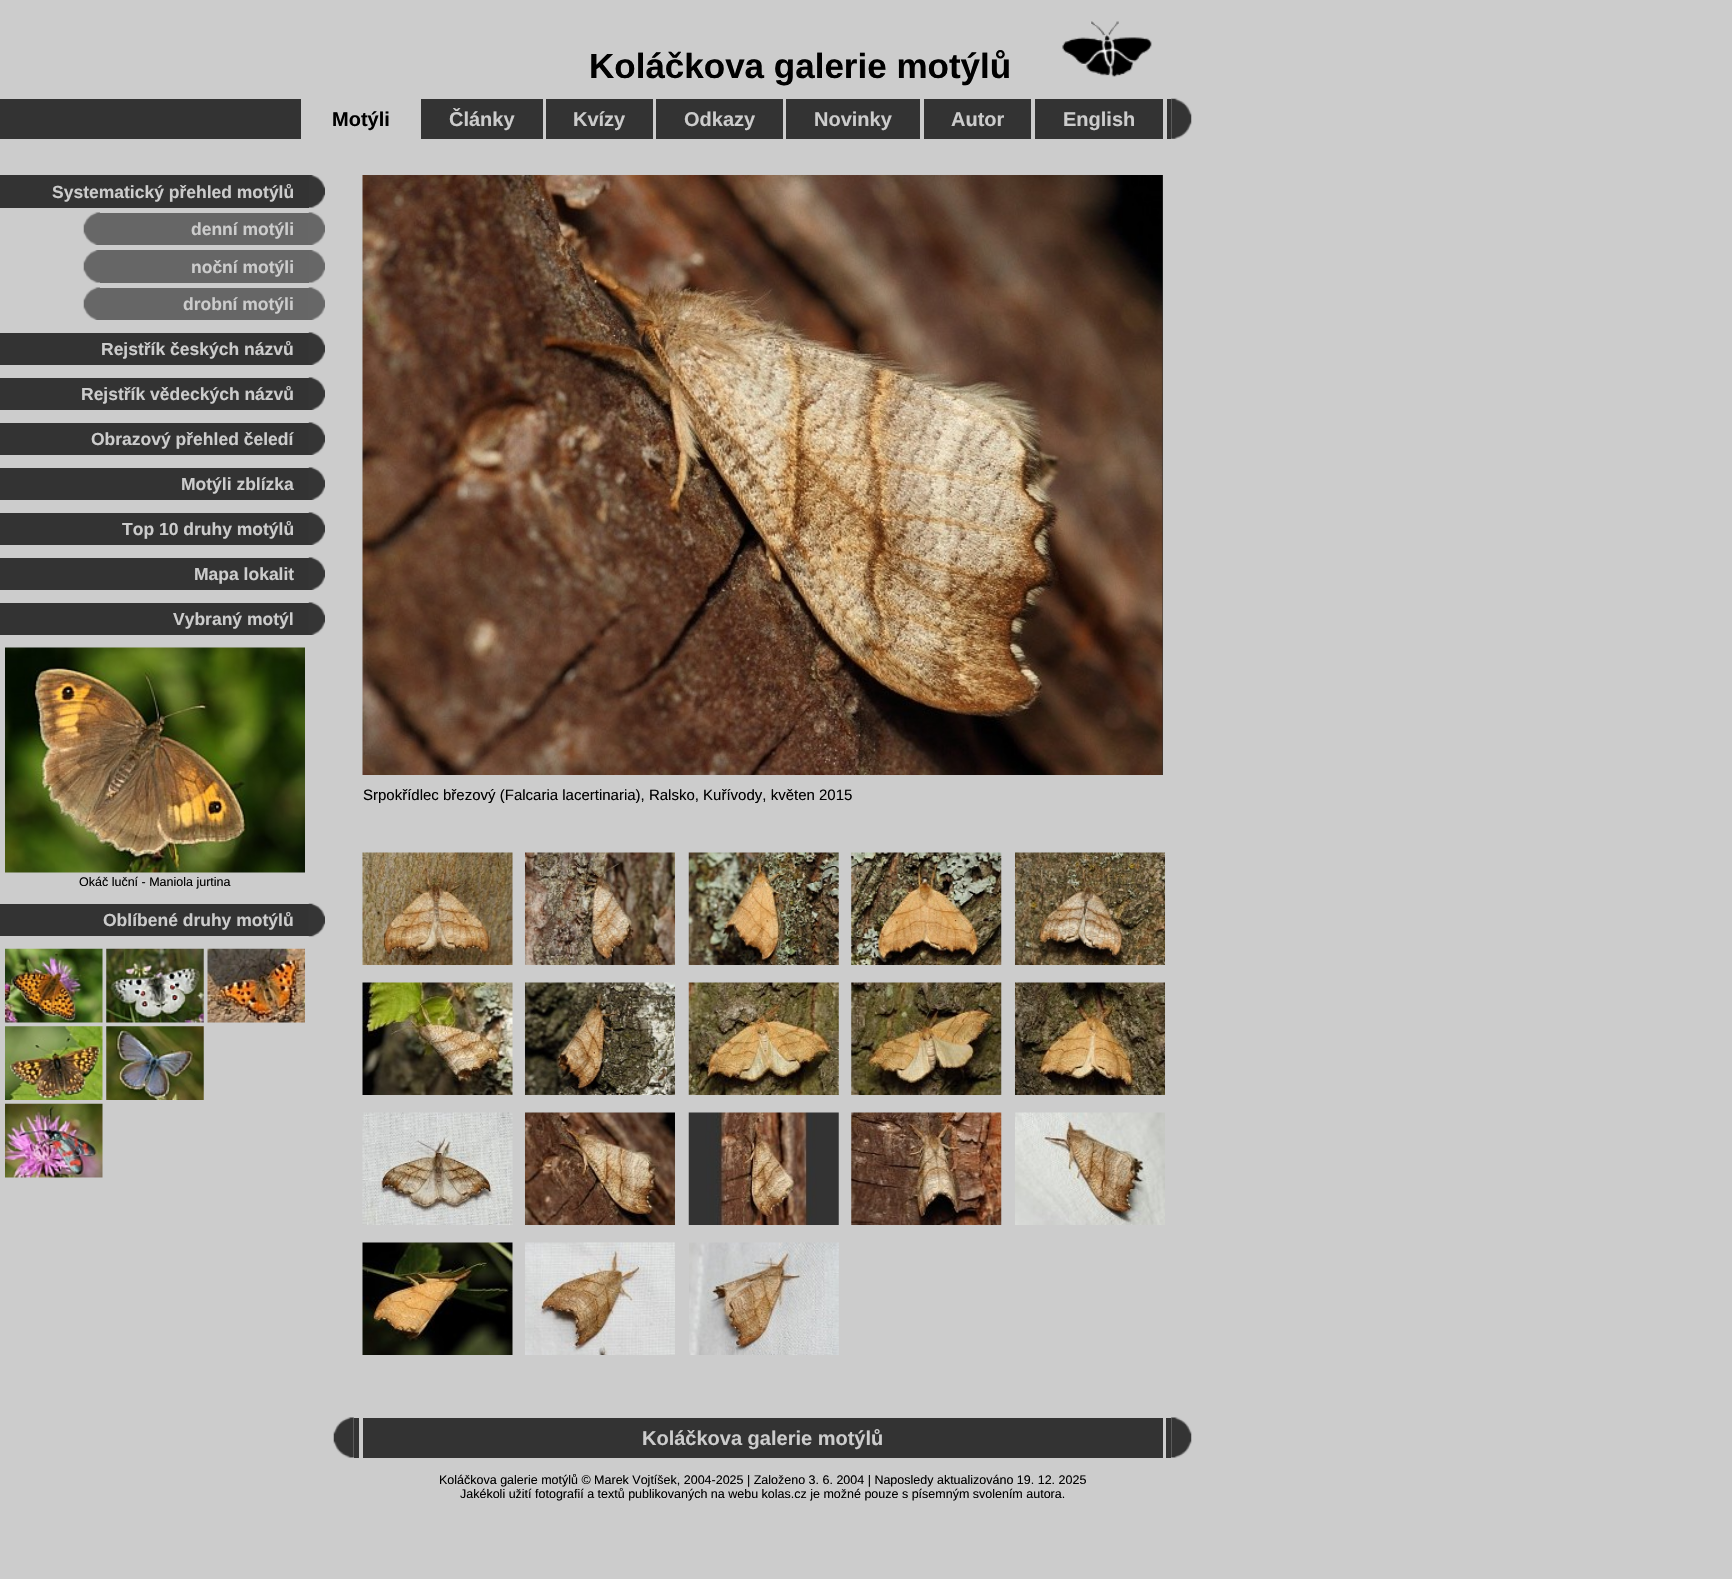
static SkFont makeFont(const char* family, int weight, float size, bool italic = false) {
  SkFontStyle style(weight, SkFontStyle::kNormal_Width,
    italic ? SkFontStyle::kItalic_Slant : SkFontStyle::kUpright_Slant);
  SkFont result(fontMgr->matchFamilyStyle(family, style), size);
  result.setSubpixel(true);
  return result;
}

static void text(SkCanvas* c, const char* s, float x, float y, const SkFont& font, SkColor color) {
  SkPaint ink(SkColor4f::FromColor(color));
  ink.setAntiAlias(true);
  c->drawString(s, x, y, font, ink);
}

static void box(SkCanvas* c, float l, float t, float r, float b, SkColor color) {
  SkPaint ink(SkColor4f::FromColor(color));
  ink.setAntiAlias(true);
  c->drawRect(SkRect::MakeLTRB(l, t, r, b), ink);
}

static void picture(SkCanvas* c, const char* path, float l, float t, float r, float b) {
  auto image = SkImages::DeferredFromEncodedData(SkData::MakeFromFileName(path));
  c->drawImageRect(image, SkRect::MakeLTRB(l, t, r, b), SkSamplingOptions());
}

void draw(SkCanvas* c) {
  SkPaint paint;
  paint.setAntiAlias(true);
  c->clear(0xffcccccc);
  SkFont face1 = makeFont("Liberation Sans", 700, 35);
  text(c, "Koláčkova galerie motýlů", 589, 78, face1, 0xff000000);
  picture(c, "img_01.png", 1062, 21, 1152, 77);
  box(c, 0, 99, 1171, 139, 0xff333333);
  box(c, 301, 99, 421, 139, 0xffcccccc);
  box(c, 543, 99, 546, 139, 0xffcccccc);
  SkFont face2 = makeFont("Liberation Sans", 700, 20);
  text(c, "Články", 449, 126, face2, 0xffcccccc);
  text(c, "Motýli", 332, 126, face2, 0xff000000);
  box(c, 653, 99, 656, 139, 0xffcccccc);
  text(c, "Kvízy", 573, 126, face2, 0xffcccccc);
  box(c, 783, 99, 786, 139, 0xffcccccc);
  text(c, "Odkazy", 684, 126, face2, 0xffcccccc);
  box(c, 920, 99, 924, 139, 0xffcccccc);
  text(c, "Novinky", 814, 126, face2, 0xffcccccc);
  box(c, 1031, 99, 1035, 139, 0xffcccccc);
  text(c, "Autor", 951, 126, face2, 0xffcccccc);
  box(c, 1163, 99, 1167, 139, 0xffcccccc);
  text(c, "English", 1063, 126, face2, 0xffcccccc);
  picture(c, "img_02.png", 1171, 98, 1192, 139);
  box(c, 0, 175, 309, 208, 0xff333333);
  SkFont face3 = makeFont("Liberation Sans", 700, 17.5f);
  text(c, "Systematický přehled motýlů", 52, 198, face3, 0xffcccccc);
  picture(c, "img_03.png", 309, 175, 325, 208);
  picture(c, "img_04.png", 83, 212, 100, 245);
  box(c, 100, 213, 309, 245, 0xff666666);
  text(c, "denní motýli", 191, 235, face3, 0xffcccccc);
  picture(c, "img_05.png", 308, 212, 325, 245);
  picture(c, "img_06.png", 83, 250, 100, 283);
  box(c, 100, 250, 309, 283, 0xff666666);
  text(c, "noční motýli", 191, 273, face3, 0xffcccccc);
  picture(c, "img_07.png", 309, 250, 325, 283);
  picture(c, "img_08.png", 83, 287, 100, 320);
  box(c, 100, 288, 309, 320, 0xff666666);
  text(c, "drobní motýli", 183, 310, face3, 0xffcccccc);
  picture(c, "img_09.png", 308, 287, 325, 320);
  box(c, 0, 333, 309, 365, 0xff333333);
  text(c, "Rejstřík českých názvů", 101, 355, face3, 0xffcccccc);
  picture(c, "img_10.png", 308, 332, 325, 365);
  box(c, 0, 378, 309, 410, 0xff333333);
  text(c, "Rejstřík vědeckých názvů", 81, 400, face3, 0xffcccccc);
  picture(c, "img_10.png", 308, 377, 325, 410);
  box(c, 0, 423, 309, 455, 0xff333333);
  text(c, "Obrazový přehled čeledí", 91, 445, face3, 0xffcccccc);
  picture(c, "img_10.png", 308, 422, 325, 455);
  box(c, 0, 468, 309, 500, 0xff333333);
  text(c, "Motýli zblízka", 181, 490, face3, 0xffcccccc);
  picture(c, "img_10.png", 308, 467, 325, 500);
  box(c, 0, 513, 309, 545, 0xff333333);
  text(c, "Top 10 druhy motýlů", 122, 535, face3, 0xffcccccc);
  picture(c, "img_11.png", 308, 512, 325, 545);
  box(c, 0, 558, 309, 590, 0xff333333);
  text(c, "Mapa lokalit", 194, 580, face3, 0xffcccccc);
  picture(c, "img_10.png", 308, 557, 325, 590);
  box(c, 0, 603, 309, 635, 0xff333333);
  text(c, "Vybraný motýl", 173, 625, face3, 0xffcccccc);
  picture(c, "img_10.png", 308, 602, 325, 635);
  picture(c, "img_12.png", 5, 647, 305, 873);
  SkFont face4 = makeFont("Liberation Sans", 400, 12.5f);
  text(c, "Okáč luční - Maniola jurtina", 79, 886, face4, 0xff000000);
  box(c, 0, 904, 309, 936, 0xff333333);
  text(c, "Oblíbené druhy motýlů", 103, 926, face3, 0xffcccccc);
  picture(c, "img_13.png", 308, 903, 325, 937);
  picture(c, "img_14.png", 5, 948, 103, 1023);
  picture(c, "img_15.png", 106, 948, 204, 1023);
  picture(c, "img_16.png", 207, 948, 305, 1023);
  picture(c, "img_17.png", 5, 1026, 103, 1100);
  picture(c, "img_18.png", 106, 1026, 204, 1100);
  picture(c, "img_19.png", 5, 1103, 103, 1178);
  box(c, 1162, 175, 1163, 775, 0xff333333);
  picture(c, "img_20.png", 362, 175, 1163, 775);
  SkFont face5 = makeFont("Liberation Sans", 400, 15);
  text(c, "Srpokřídlec březový (Falcaria lacertinaria), Ralsko, Kuřívody, květen 2015", 363, 800, face5, 0xff000000);
  picture(c, "img_21.png", 362, 852, 513, 965);
  picture(c, "img_22.png", 525, 852, 675, 965);
  picture(c, "img_23.png", 688, 852, 839, 965);
  picture(c, "img_24.png", 851, 852, 1002, 965);
  picture(c, "img_25.png", 1015, 852, 1165, 965);
  picture(c, "img_26.png", 362, 982, 513, 1095);
  picture(c, "img_27.png", 525, 982, 675, 1095);
  picture(c, "img_28.png", 688, 982, 839, 1095);
  picture(c, "img_29.png", 851, 982, 1002, 1095);
  picture(c, "img_30.png", 1015, 982, 1165, 1095);
  picture(c, "img_31.png", 362, 1112, 513, 1225);
  picture(c, "img_32.png", 525, 1112, 675, 1225);
  picture(c, "img_33.png", 688, 1112, 839, 1225);
  picture(c, "img_34.png", 851, 1112, 1002, 1225);
  picture(c, "img_35.png", 1015, 1112, 1165, 1225);
  picture(c, "img_36.png", 362, 1242, 513, 1355);
  picture(c, "img_37.png", 525, 1242, 675, 1355);
  picture(c, "img_38.png", 689, 1242, 839, 1355);
  box(c, 354, 1418, 359, 1458, 0xff333333);
  picture(c, "img_39.png", 333, 1417, 354, 1458);
  box(c, 363, 1418, 1163, 1458, 0xff333333);
  text(c, "Koláčkova galerie motýlů", 642, 1445, face2, 0xffcccccc);
  box(c, 1166, 1418, 1171, 1458, 0xff333333);
  picture(c, "img_40.png", 1171, 1417, 1192, 1458);
  text(c, "Koláčkova galerie motýlů © Marek Vojtíšek, 2004-2025 | Založeno 3. 6. 2004 | Naposledy aktualizováno 19. 12. 2025", 439, 1484, face4, 0xff000000);
  text(c, "Jakékoli užití fotografií a textů publikovaných na webu kolas.cz je možné pouze s písemným svolením autora.", 460, 1498, face4, 0xff000000);
}
